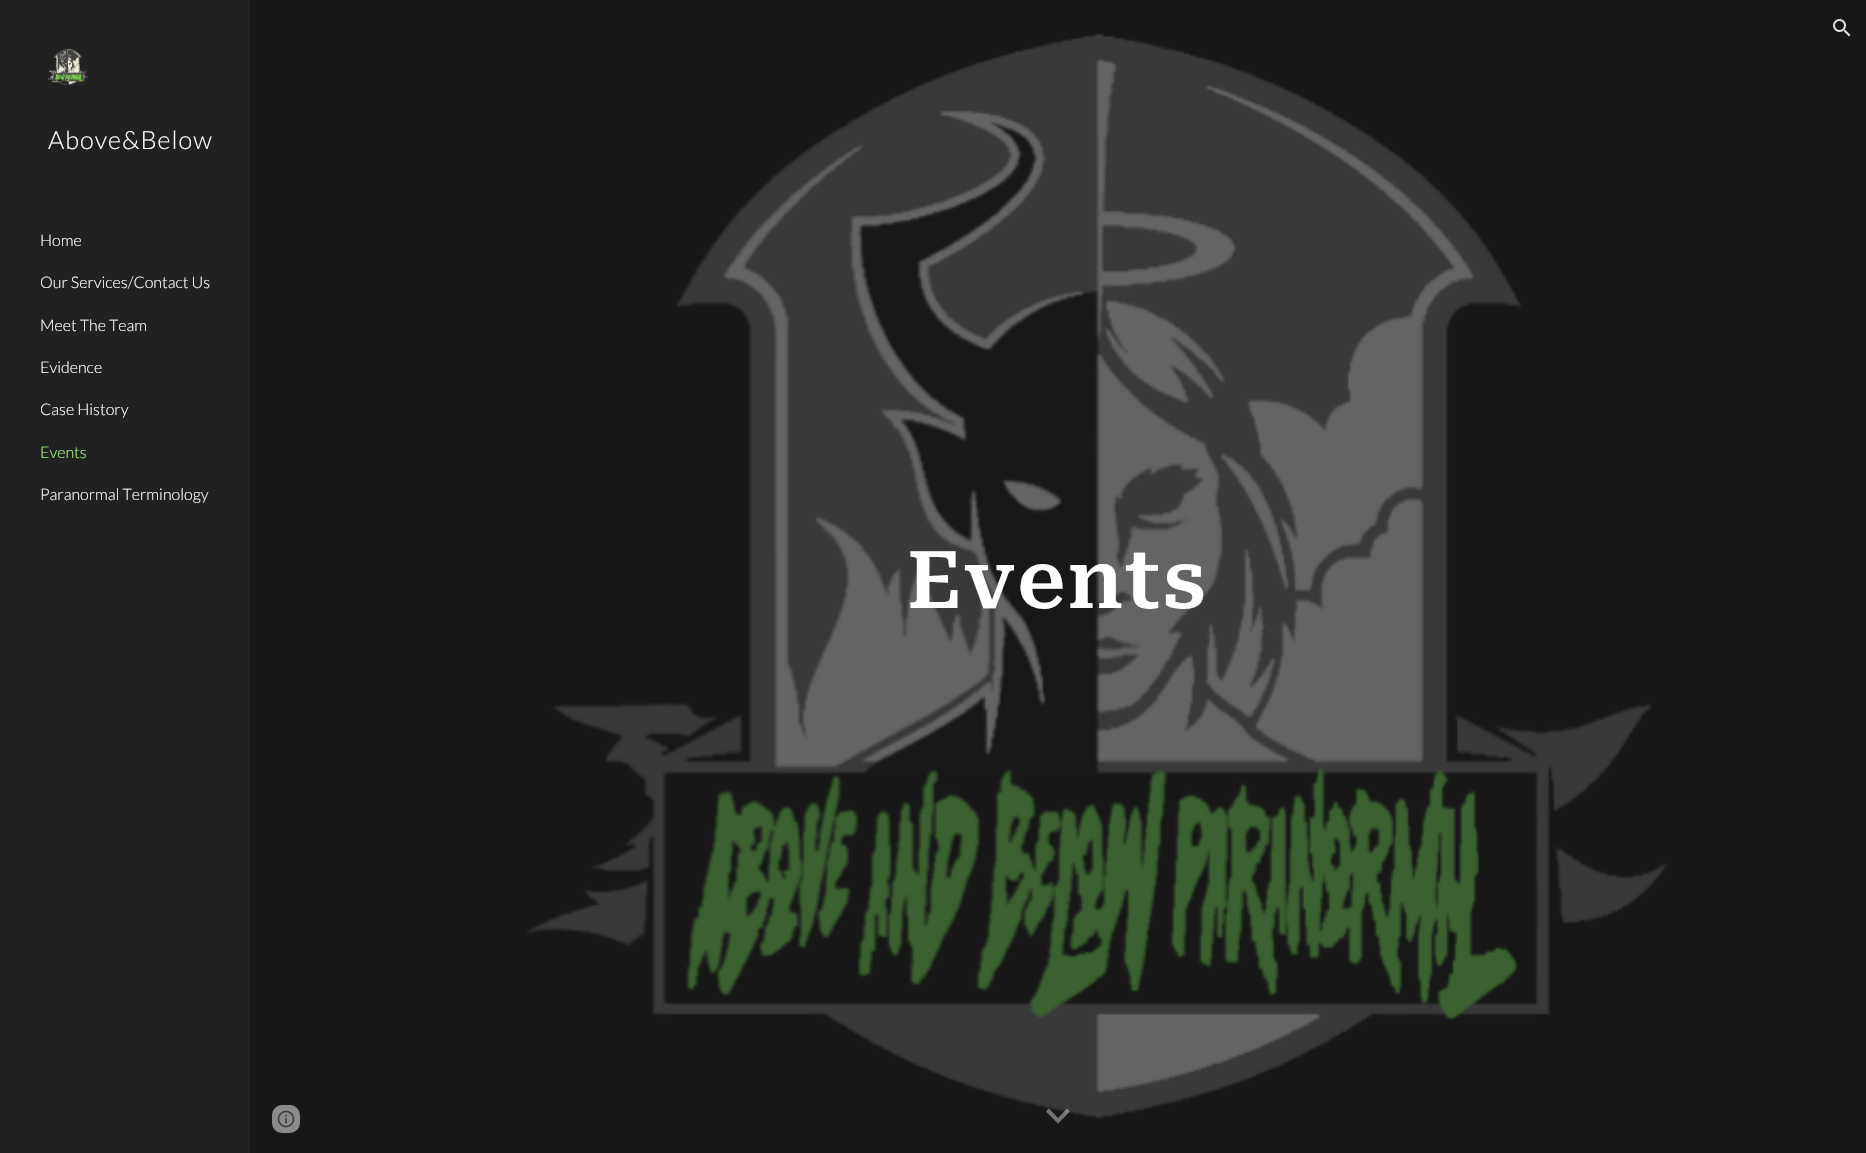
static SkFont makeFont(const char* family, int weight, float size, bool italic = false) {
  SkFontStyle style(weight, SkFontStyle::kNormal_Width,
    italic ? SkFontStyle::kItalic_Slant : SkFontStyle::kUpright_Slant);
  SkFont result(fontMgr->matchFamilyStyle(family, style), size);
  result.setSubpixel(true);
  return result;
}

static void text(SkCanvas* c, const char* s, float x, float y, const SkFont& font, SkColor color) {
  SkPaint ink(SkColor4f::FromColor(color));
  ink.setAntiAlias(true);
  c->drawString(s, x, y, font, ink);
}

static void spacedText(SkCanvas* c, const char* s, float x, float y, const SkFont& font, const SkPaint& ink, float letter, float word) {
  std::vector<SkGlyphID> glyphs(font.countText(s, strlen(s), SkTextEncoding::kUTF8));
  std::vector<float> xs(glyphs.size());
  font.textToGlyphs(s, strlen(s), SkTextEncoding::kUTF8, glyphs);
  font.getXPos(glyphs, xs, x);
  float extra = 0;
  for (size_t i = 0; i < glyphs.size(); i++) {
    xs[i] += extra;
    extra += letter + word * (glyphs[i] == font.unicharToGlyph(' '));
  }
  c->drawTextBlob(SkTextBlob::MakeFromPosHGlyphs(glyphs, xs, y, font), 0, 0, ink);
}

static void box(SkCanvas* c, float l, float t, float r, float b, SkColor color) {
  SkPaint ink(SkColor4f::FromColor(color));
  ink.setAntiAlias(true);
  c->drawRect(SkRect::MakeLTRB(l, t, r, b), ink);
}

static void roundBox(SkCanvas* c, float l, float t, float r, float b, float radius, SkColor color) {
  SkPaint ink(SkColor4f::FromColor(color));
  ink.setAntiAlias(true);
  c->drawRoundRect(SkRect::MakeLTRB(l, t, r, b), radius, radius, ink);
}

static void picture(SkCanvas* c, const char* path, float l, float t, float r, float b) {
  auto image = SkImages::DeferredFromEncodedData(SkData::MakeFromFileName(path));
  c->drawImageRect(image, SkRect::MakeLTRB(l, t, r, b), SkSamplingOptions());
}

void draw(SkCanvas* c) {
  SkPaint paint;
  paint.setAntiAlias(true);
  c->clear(0xffffffff);
  picture(c, "img_03.png", 250, 0, 1866, 1153);
  picture(c, "img_01.png", 1833, 19, 1851, 37);
  box(c, 0, 0, 250, 1153, 0xff212121);
  picture(c, "img_02.png", 48, 48, 88, 85);
  SkFont face1 = makeFont("Lato", 300, 25.25f);
  paint.setColor(0xffffffff);
  spacedText(c, "Above&Below", 48, 149, face1, paint, 1, 0);
  SkFont face2 = makeFont("Lato", 300, 16);
  text(c, "Home", 40, 246, face2, 0xffffffff);
  text(c, "Our Services/Contact Us", 40, 288, face2, 0xffffffff);
  text(c, "Meet The Team", 40, 331, face2, 0xffffffff);
  text(c, "Evidence", 40, 373, face2, 0xffffffff);
  text(c, "Case History", 40, 415, face2, 0xffffffff);
  text(c, "Events", 40, 458, face2, 0xffa2ea7f);
  text(c, "Paranormal Terminology", 40, 500, face2, 0xffffffff);
  SkFont face3 = makeFont("Roboto Serif", 600, 80);
  spacedText(c, "Events", 907, 608, face3, paint, 2, 0);
  paint.setColor(0x66ffffff);
  c->drawPath(SkPathBuilder().moveTo(1049, 1108.5f).lineTo(1058, 1118).lineTo(1067, 1108.5f).lineTo(1070, 1111.5f).lineTo(1058, 1123.5f).lineTo(1046, 1111.5f).close().detach(), paint);
  roundBox(c, 272, 1105, 300, 1133, 10, 0xff8b8b8b);
  picture(c, "img_04.png", 277, 1110, 295, 1128);
}
